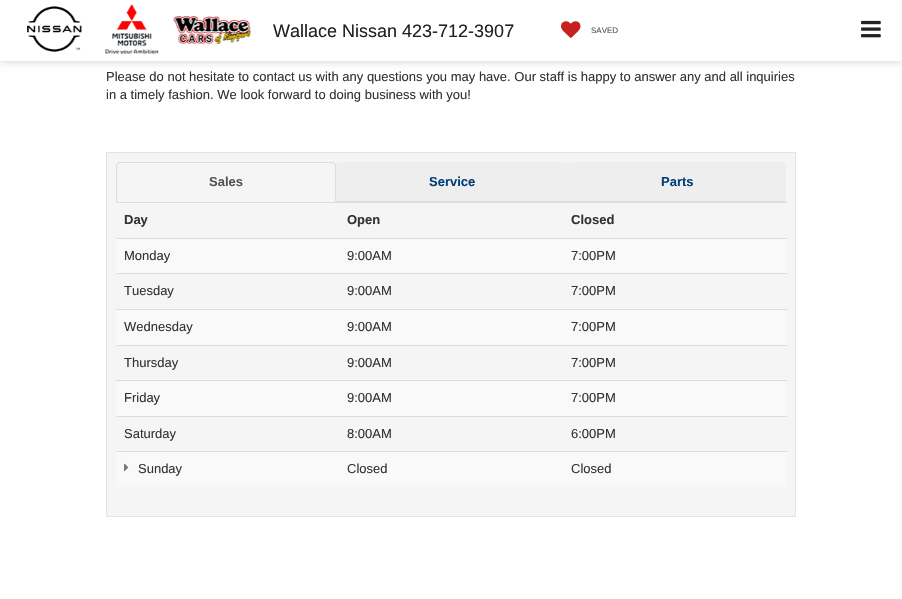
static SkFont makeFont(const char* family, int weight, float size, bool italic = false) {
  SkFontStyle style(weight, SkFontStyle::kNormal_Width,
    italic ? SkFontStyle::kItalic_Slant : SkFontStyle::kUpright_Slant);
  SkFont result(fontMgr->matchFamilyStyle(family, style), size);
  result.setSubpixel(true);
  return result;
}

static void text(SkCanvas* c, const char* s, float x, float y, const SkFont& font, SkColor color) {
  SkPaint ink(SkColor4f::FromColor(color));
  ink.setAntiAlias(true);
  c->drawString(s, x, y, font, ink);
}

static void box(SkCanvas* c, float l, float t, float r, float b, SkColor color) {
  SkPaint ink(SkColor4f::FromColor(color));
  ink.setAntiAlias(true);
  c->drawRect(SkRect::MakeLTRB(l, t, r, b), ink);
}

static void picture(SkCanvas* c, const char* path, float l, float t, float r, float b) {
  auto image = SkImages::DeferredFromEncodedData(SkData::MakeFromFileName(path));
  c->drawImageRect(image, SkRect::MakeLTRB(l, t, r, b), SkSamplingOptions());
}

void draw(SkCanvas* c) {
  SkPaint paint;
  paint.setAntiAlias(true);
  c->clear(0xffffffff);
  paint.setColor(0x33000000);
  paint.setMaskFilter(SkMaskFilter::MakeBlur(kNormal_SkBlurStyle, 4));
  c->drawRect(SkRect::MakeLTRB(0, 0, 902, 61), paint);
  paint.setMaskFilter(nullptr);
  box(c, 0, 0, 902, 61, 0xffffffff);
  picture(c, "img_01.png", 861, 20, 881, 38);
  picture(c, "img_02.png", 27, 4, 251, 54);
  SkFont face1 = makeFont("Liberation Sans", 400, 18);
  text(c, "Wallace Nissan 423-712-3907", 273, 37, face1, 0xff222222);
  picture(c, "img_03.png", 561, 21, 581, 38);
  SkFont face2 = makeFont("Liberation Sans", 400, 8);
  text(c, "SAVED", 591, 33, face2, 0xff555555);
  SkFont face3 = makeFont("Liberation Sans", 400, 13);
  text(c, "Please do not hesitate to contact us with any questions you may have. Our staff is happy to answer any and all inquiries", 106, 81, face3, 0xff333333);
  text(c, "in a timely fashion. We look forward to doing business with you!", 106, 99, face3, 0xff333333);
  paint.setColor(0xfff5f5f5);
  c->drawRect(SkRect::MakeLTRB(106.5f, 152.5f, 795.5f, 516.5f), paint);
  paint.setStyle(SkPaint::kStroke_Style);
  paint.setStrokeWidth(1);
  paint.setColor(0xffe3e3e3);
  c->drawRect(SkRect::MakeLTRB(106.5f, 152.5f, 795.5f, 516.5f), paint);
  paint.setStyle(SkPaint::kFill_Style);
  paint.setColor(0xffdddddd);
  c->drawPath(SkPathBuilder().moveTo(120, 162).lineTo(117, 163).lineTo(118, 164).lineTo(120, 163).lineTo(332, 163).lineTo(334, 164).lineTo(335, 163).lineTo(332, 162).close().detach(), paint);
  c->drawPath(SkPathBuilder().moveTo(336, 202).lineTo(336, 166).cubicTo(336, 165, 335.5f, 164, 335, 163).lineTo(334, 164).cubicTo(335, 164, 335, 165, 335, 166).lineTo(335, 201).close().detach(), paint);
  c->drawPath(SkPathBuilder().moveTo(116, 202).lineTo(117, 201).lineTo(117, 166).cubicTo(117, 165, 117, 164, 118, 164).lineTo(117, 163).cubicTo(116.5f, 164, 116, 165, 116, 166).close().detach(), paint);
  SkFont face4 = makeFont("Liberation Sans", 700, 13);
  text(c, "Sales", 209, 186, face4, 0xff555555);
  paint.setColor(0xffeeeeee);
  c->drawPath(SkPathBuilder().moveTo(340, 162).lineTo(564, 162).cubicTo(566, 162, 568, 164, 568, 166).lineTo(568, 202).lineTo(336, 202).lineTo(336, 166).cubicTo(336, 164, 338, 162, 340, 162).close().detach(), paint);
  paint.setColor(0xffdddddd);
  c->drawPath(SkPathBuilder().moveTo(568, 202).lineTo(567, 201).lineTo(337, 201).lineTo(336, 202).close().detach(), paint);
  text(c, "Service", 429, 186, face4, 0xff003f7a);
  paint.setColor(0xffeeeeee);
  c->drawPath(SkPathBuilder().moveTo(572, 162).lineTo(782, 162).cubicTo(784, 162, 786, 164, 786, 166).lineTo(786, 202).lineTo(568, 202).lineTo(568, 166).cubicTo(568, 164, 570, 162, 572, 162).close().detach(), paint);
  paint.setColor(0xffdddddd);
  c->drawPath(SkPathBuilder().moveTo(786, 202).lineTo(785, 201).lineTo(569, 201).lineTo(568, 202).close().detach(), paint);
  text(c, "Parts", 661, 186, face4, 0xff003f7a);
  text(c, "Day", 124, 224, face4, 0xff333333);
  text(c, "Open", 347, 224, face4, 0xff333333);
  box(c, 116, 202, 787, 203, 0xffdddddd);
  text(c, "Closed", 571, 224, face4, 0xff333333);
  box(c, 116, 239, 786, 273, 0xfff9f9f9);
  text(c, "Monday", 124, 260, face3, 0xff333333);
  text(c, "9:00AM", 347, 260, face3, 0xff333333);
  box(c, 116, 238, 787, 239, 0xffdddddd);
  text(c, "7:00PM", 571, 260, face3, 0xff333333);
  text(c, "Tuesday", 124, 295, face3, 0xff333333);
  text(c, "9:00AM", 347, 295, face3, 0xff333333);
  box(c, 116, 273, 787, 274, 0xffdddddd);
  text(c, "7:00PM", 571, 295, face3, 0xff333333);
  box(c, 116, 310, 786, 345, 0xfff9f9f9);
  text(c, "Wednesday", 124, 331, face3, 0xff333333);
  text(c, "9:00AM", 347, 331, face3, 0xff333333);
  box(c, 116, 309, 787, 310, 0xffdddddd);
  text(c, "7:00PM", 571, 331, face3, 0xff333333);
  text(c, "Thursday", 124, 367, face3, 0xff333333);
  text(c, "9:00AM", 347, 367, face3, 0xff333333);
  box(c, 116, 345, 787, 346, 0xffdddddd);
  text(c, "7:00PM", 571, 367, face3, 0xff333333);
  box(c, 116, 381, 786, 416, 0xfff9f9f9);
  text(c, "Friday", 124, 402, face3, 0xff333333);
  text(c, "9:00AM", 347, 402, face3, 0xff333333);
  box(c, 116, 380, 787, 381, 0xffdddddd);
  text(c, "7:00PM", 571, 402, face3, 0xff333333);
  text(c, "Saturday", 124, 438, face3, 0xff333333);
  text(c, "8:00AM", 347, 438, face3, 0xff333333);
  box(c, 116, 416, 787, 417, 0xffdddddd);
  text(c, "6:00PM", 571, 438, face3, 0xff333333);
  box(c, 116, 452, 786, 487, 0xfff9f9f9);
  picture(c, "img_04.png", 124, 463, 129, 472);
  text(c, "Sunday", 138, 473, face3, 0xff333333);
  text(c, "Closed", 347, 473, face3, 0xff333333);
  box(c, 116, 451, 787, 452, 0xffdddddd);
  text(c, "Closed", 571, 473, face3, 0xff333333);
}
